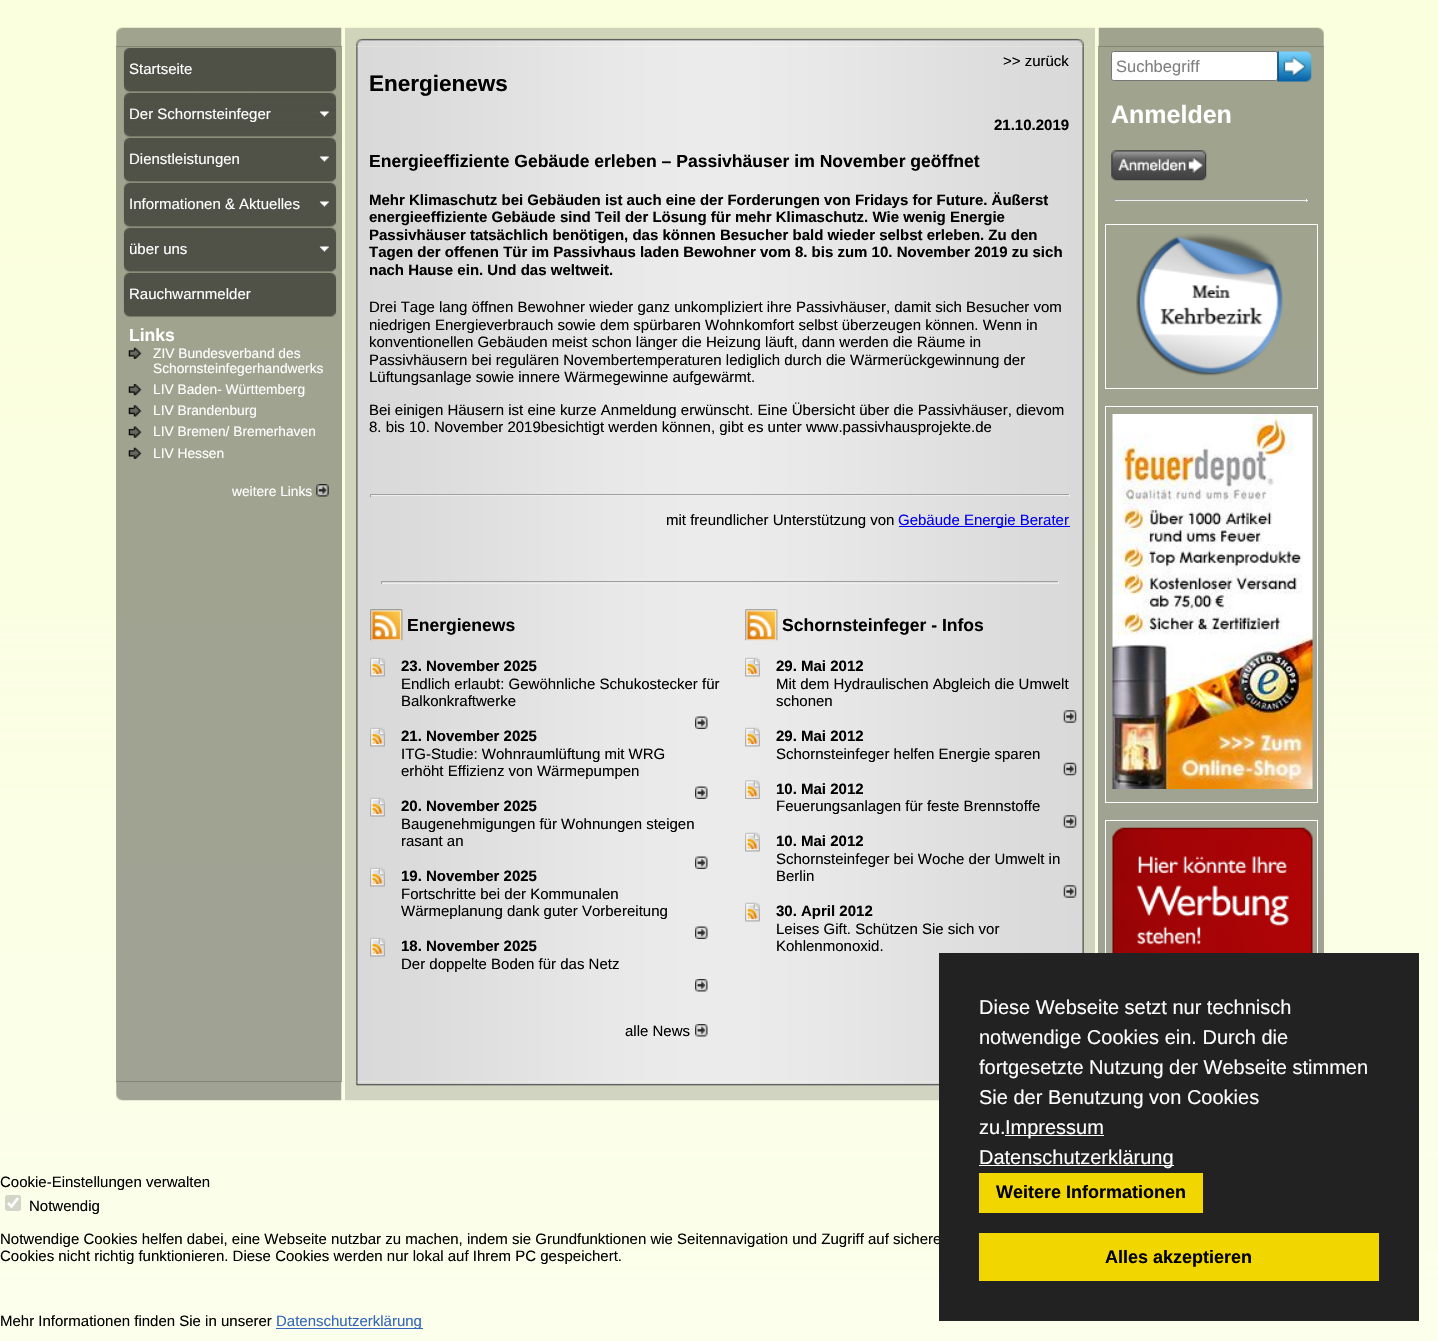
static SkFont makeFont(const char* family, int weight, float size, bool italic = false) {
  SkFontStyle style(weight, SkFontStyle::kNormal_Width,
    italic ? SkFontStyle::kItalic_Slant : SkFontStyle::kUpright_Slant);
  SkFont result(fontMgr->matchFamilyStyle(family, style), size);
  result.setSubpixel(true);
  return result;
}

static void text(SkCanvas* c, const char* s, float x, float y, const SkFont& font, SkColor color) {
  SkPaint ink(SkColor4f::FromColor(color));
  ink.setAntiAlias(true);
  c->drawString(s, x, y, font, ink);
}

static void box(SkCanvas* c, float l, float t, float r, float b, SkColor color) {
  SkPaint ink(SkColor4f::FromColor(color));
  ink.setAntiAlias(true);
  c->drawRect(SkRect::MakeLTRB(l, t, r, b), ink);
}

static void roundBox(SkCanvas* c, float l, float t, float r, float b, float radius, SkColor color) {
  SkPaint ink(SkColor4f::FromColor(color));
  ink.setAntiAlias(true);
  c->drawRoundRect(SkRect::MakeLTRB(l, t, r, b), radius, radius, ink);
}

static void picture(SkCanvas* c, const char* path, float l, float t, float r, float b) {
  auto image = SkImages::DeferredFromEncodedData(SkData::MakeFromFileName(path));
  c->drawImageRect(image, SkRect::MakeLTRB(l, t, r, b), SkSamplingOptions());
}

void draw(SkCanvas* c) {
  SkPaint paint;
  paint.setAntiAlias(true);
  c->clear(0xffffffff);
  picture(c, "img_01.png", 0, 0, 1438, 1341);
  box(c, 116, 46, 342, 1082, 0x5c000000);
  picture(c, "img_02.png", 116, 27, 342, 47);
  picture(c, "img_20.png", 345, 46, 1095, 1082);
  picture(c, "img_03.png", 345, 27, 1095, 47);
  box(c, 1098, 46, 1324, 953, 0x5c000000);
  picture(c, "img_04.png", 1098, 27, 1324, 47);
  picture(c, "img_05.png", 123, 47, 337, 92);
  SkFont face1 = makeFont("Liberation Sans", 400, 15);
  text(c, "Startseite", 129, 74, face1, 0xffffffff);
  picture(c, "img_06.png", 123, 92, 337, 137);
  text(c, "Der Schornsteinfeger", 129, 119, face1, 0xffffffff);
  picture(c, "img_07.png", 319, 111, 329, 117);
  picture(c, "img_08.png", 123, 137, 337, 182);
  text(c, "Dienstleistungen", 129, 164, face1, 0xffffffff);
  picture(c, "img_09.png", 319, 156, 329, 162);
  picture(c, "img_10.png", 123, 182, 337, 227);
  text(c, "Informationen & Aktuelles", 129, 209, face1, 0xffffffff);
  picture(c, "img_09.png", 319, 201, 329, 207);
  picture(c, "img_11.png", 123, 227, 337, 272);
  text(c, "über uns", 129, 254, face1, 0xffffffff);
  picture(c, "img_12.png", 319, 246, 329, 252);
  picture(c, "img_13.png", 123, 272, 337, 317);
  text(c, "Rauchwarnmelder", 129, 299, face1, 0xffffffff);
  SkFont face2 = makeFont("Liberation Sans", 700, 17.55f);
  text(c, "Links", 129, 341, face2, 0xffffffff);
  picture(c, "img_14.png", 128, 347, 142, 359);
  SkFont face3 = makeFont("Liberation Sans", 400, 13.75f);
  text(c, "ZIV Bundesverband des", 153, 358, face3, 0xffffffff);
  text(c, "Schornsteinfegerhandwerks", 153, 373, face3, 0xffffffff);
  picture(c, "img_15.png", 128, 384, 142, 396);
  text(c, "LIV Baden- Württemberg", 153, 394, face3, 0xffffffff);
  picture(c, "img_16.png", 128, 405, 142, 417);
  text(c, "LIV Brandenburg", 153, 415, face3, 0xffffffff);
  picture(c, "img_17.png", 128, 426, 142, 438);
  text(c, "LIV Bremen/ Bremerhaven", 153, 436, face3, 0xffffffff);
  picture(c, "img_18.png", 128, 447, 142, 459);
  text(c, "LIV Hessen", 153, 458, face3, 0xffffffff);
  text(c, "weitere Links", 232, 496, face3, 0xffffffff);
  picture(c, "img_19.png", 316, 484, 329, 497);
  text(c, ">> zurück", 1003, 66, face1, 0xff000000);
  SkFont face4 = makeFont("Liberation Sans", 700, 22.5f);
  text(c, "Energienews", 369, 91, face4, 0xff000000);
  SkFont face5 = makeFont("Liberation Sans", 700, 15);
  text(c, "21.10.2019", 994, 130, face5, 0xff000000);
  text(c, "Energieeffiziente Gebäude erleben – Passivhäuser im November geöffnet", 369, 167, face2, 0xff000000);
  text(c, "Mehr Klimaschutz bei Gebäuden ist auch eine der Forderungen von Fridays for Future. Äußerst", 369, 205, face5, 0xff000000);
  text(c, "energieeffiziente Gebäude sind Teil der Lösung für mehr Klimaschutz. Wie wenig Energie", 369, 222, face5, 0xff000000);
  text(c, "Passivhäuser tatsächlich benötigen, das können Besucher bald wieder selbst erleben. Zu den", 369, 240, face5, 0xff000000);
  text(c, "Tagen der offenen Tür im Passivhaus laden Bewohner vom 8. bis zum 10. November 2019 zu sich", 369, 257, face5, 0xff000000);
  text(c, "nach Hause ein. Und das weltweit.", 369, 275, face5, 0xff000000);
  text(c, "Drei Tage lang öffnen Bewohner wieder ganz unkompliziert ihre Passivhäuser, damit sich Besucher vom", 369, 312, face1, 0xff000000);
  text(c, "niedrigen Energieverbrauch sowie dem spürbaren Wohnkomfort selbst überzeugen können. Wenn in", 369, 330, face1, 0xff000000);
  text(c, "konventionellen Gebäuden meist schon länger die Heizung läuft, dann werden die Räume in", 369, 347, face1, 0xff000000);
  text(c, "Passivhäusern bei regulären Novembertemperaturen lediglich durch die Wärmerückgewinnung der", 369, 365, face1, 0xff000000);
  text(c, "Lüftungsanlage sowie innere Wärmegewinne aufgewärmt.", 369, 382, face1, 0xff000000);
  text(c, "Bei einigen Häusern ist eine kurze Anmeldung erwünscht. Eine Übersicht über die Passivhäuser, dievom", 369, 415, face1, 0xff000000);
  text(c, "8. bis 10. November 2019besichtigt werden können, gibt es unter www.passivhausprojekte.de", 369, 432, face1, 0xff000000);
  box(c, 370, 494, 1070, 495, 0xff9f9f9f);
  box(c, 1069, 494, 1070, 497, 0xffeeeeee);
  box(c, 370, 495, 1070, 496, 0xffeeeeee);
  box(c, 370, 494, 371, 497, 0xff9f9f9f);
  text(c, "mit freundlicher Unterstützung von", 666, 525, face1, 0xff000000);
  box(c, 899, 526, 1070, 527, 0xff0000ee);
  text(c, "Gebäude Energie Berater", 898, 525, face1, 0xff0000ee);
  box(c, 381, 581, 1059, 582, 0xff9f9f9f);
  box(c, 1058, 581, 1059, 584, 0xffeeeeee);
  box(c, 381, 583, 1059, 584, 0xffeeeeee);
  box(c, 381, 581, 382, 584, 0xff9f9f9f);
  picture(c, "img_21.png", 370, 609, 403, 641);
  text(c, "Energienews", 407, 631, face2, 0xff000000);
  picture(c, "img_22.png", 370, 657, 385, 677);
  text(c, "23. November 2025", 401, 671, face5, 0xff000000);
  text(c, "Endlich erlaubt: Gewöhnliche Schukostecker für", 401, 689, face1, 0xff000000);
  text(c, "Balkonkraftwerke", 401, 706, face1, 0xff000000);
  picture(c, "img_23.png", 695, 716, 708, 729);
  picture(c, "img_22.png", 370, 727, 385, 747);
  text(c, "21. November 2025", 401, 741, face5, 0xff000000);
  text(c, "ITG-Studie: Wohnraumlüftung mit WRG", 401, 759, face1, 0xff000000);
  text(c, "erhöht Effizienz von Wärmepumpen", 401, 776, face1, 0xff000000);
  picture(c, "img_23.png", 695, 786, 708, 799);
  picture(c, "img_22.png", 370, 797, 385, 817);
  text(c, "20. November 2025", 401, 811, face5, 0xff000000);
  text(c, "Baugenehmigungen für Wohnungen steigen", 401, 829, face1, 0xff000000);
  text(c, "rasant an", 401, 846, face1, 0xff000000);
  picture(c, "img_23.png", 695, 856, 708, 869);
  picture(c, "img_22.png", 370, 867, 385, 887);
  text(c, "19. November 2025", 401, 881, face5, 0xff000000);
  text(c, "Fortschritte bei der Kommunalen", 401, 899, face1, 0xff000000);
  text(c, "Wärmeplanung dank guter Vorbereitung", 401, 916, face1, 0xff000000);
  picture(c, "img_23.png", 695, 926, 708, 939);
  picture(c, "img_22.png", 370, 937, 385, 957);
  text(c, "18. November 2025", 401, 951, face5, 0xff000000);
  text(c, "Der doppelte Boden für das Netz", 401, 969, face1, 0xff000000);
  picture(c, "img_24.png", 695, 979, 708, 992);
  text(c, "alle News", 625, 1036, face1, 0xff000000);
  picture(c, "img_24.png", 695, 1024, 708, 1037);
  picture(c, "img_25.png", 745, 609, 778, 641);
  text(c, "Schornsteinfeger - Infos", 782, 631, face2, 0xff000000);
  picture(c, "img_26.png", 745, 657, 760, 677);
  text(c, "29. Mai 2012", 776, 671, face5, 0xff000000);
  text(c, "Mit dem Hydraulischen Abgleich die Umwelt", 776, 689, face1, 0xff000000);
  text(c, "schonen", 776, 706, face1, 0xff000000);
  picture(c, "img_27.png", 1063, 710, 1077, 723);
  picture(c, "img_26.png", 745, 727, 760, 747);
  text(c, "29. Mai 2012", 776, 741, face5, 0xff000000);
  text(c, "Schornsteinfeger helfen Energie sparen", 776, 759, face1, 0xff000000);
  picture(c, "img_28.png", 1063, 762, 1077, 776);
  picture(c, "img_29.png", 745, 780, 760, 799);
  text(c, "10. Mai 2012", 776, 794, face5, 0xff000000);
  text(c, "Feuerungsanlagen für feste Brennstoffe", 776, 811, face1, 0xff000000);
  picture(c, "img_27.png", 1063, 815, 1077, 828);
  picture(c, "img_26.png", 745, 832, 760, 852);
  text(c, "10. Mai 2012", 776, 846, face5, 0xff000000);
  text(c, "Schornsteinfeger bei Woche der Umwelt in", 776, 864, face1, 0xff000000);
  text(c, "Berlin", 776, 881, face1, 0xff000000);
  picture(c, "img_27.png", 1063, 885, 1077, 898);
  picture(c, "img_26.png", 745, 902, 760, 922);
  text(c, "30. April 2012", 776, 916, face5, 0xff000000);
  text(c, "Leises Gift. Schützen Sie sich vor", 776, 934, face1, 0xff000000);
  text(c, "Kohlenmonoxid.", 776, 951, face1, 0xff000000);
  paint.setColor(0xffffffff);
  c->drawRoundRect(SkRect::MakeLTRB(1111.5f, 51.5f, 1277.5f, 80.5f), 2, 2, paint);
  paint.setStyle(SkPaint::kStroke_Style);
  paint.setStrokeWidth(1);
  paint.setColor(0xff767676);
  c->drawRoundRect(SkRect::MakeLTRB(1111.5f, 51.5f, 1277.5f, 80.5f), 2, 2, paint);
  SkFont face6 = makeFont("Liberation Sans", 400, 16.5f);
  text(c, "Suchbegriff", 1116, 72, face6, 0xff808080);
  picture(c, "img_30.png", 1277, 51, 1312, 82);
  SkFont face7 = makeFont("Liberation Sans", 700, 25);
  text(c, "Anmelden", 1111, 123, face7, 0xffffffff);
  picture(c, "img_31.png", 1111, 150, 1207, 181);
  box(c, 1114, 199, 1308, 200, 0xff9f9f9f);
  box(c, 1306, 199, 1307, 202, 0xffeeeeee);
  box(c, 1114, 200, 1308, 201, 0xffeeeeee);
  box(c, 1114, 199, 1115, 202, 0xff9f9f9f);
  paint.setColor(0xffffffff);
  c->drawRect(SkRect::MakeLTRB(1105.5f, 224.5f, 1317.5f, 388.5f), paint);
  picture(c, "img_32.png", 1136, 233, 1283, 376);
  c->drawRect(SkRect::MakeLTRB(1105.5f, 406.5f, 1317.5f, 802.5f), paint);
  picture(c, "img_33.png", 1112, 414, 1313, 789);
  c->drawRect(SkRect::MakeLTRB(1105.5f, 820.5f, 1317.5f, 985.5f), paint);
  picture(c, "img_34.png", 1112, 827, 1313, 953);
  picture(c, "img_35.png", 116, 1081, 342, 1101);
  picture(c, "img_36.png", 345, 1081, 939, 1101);
  text(c, "Cookie-Einstellungen verwalten", 0, 1187, face1, 0xff000000);
  roundBox(c, 5, 1195, 21, 1211, 2.5f, 0xffd3d6c7);
  paint.setStrokeWidth(2.6f);
  c->drawPath(SkPathBuilder().moveTo(8, 1203).lineTo(11.5f, 1206.5f).lineTo(18, 1198).detach(), paint);
  text(c, "Notwendig", 29, 1211, face1, 0xff000000);
  text(c, "Notwendige Cookies helfen dabei, eine Webseite nutzbar zu machen, indem sie Grundfunktionen wie Seitennavigation und Zugriff auf sichere", 0, 1244, face1, 0xff000000);
  text(c, "Cookies nicht richtig funktionieren. Diese Cookies werden nur lokal auf Ihrem PC gespeichert.", 0, 1261, face1, 0xff000000);
  text(c, "Mehr Informationen finden Sie in unserer", 0, 1326, face1, 0xff000000);
  box(c, 276, 1328, 423, 1329, 0xff3366bb);
  text(c, "Datenschutzerklärung", 276, 1326, face1, 0xff3366bb);
  box(c, 939, 953, 1419, 1321, 0xff222222);
  SkFont face8 = makeFont("Liberation Sans", 400, 20);
  text(c, "Diese Webseite setzt nur technisch", 979, 1014, face8, 0xffffffff);
  text(c, "notwendige Cookies ein. Durch die", 979, 1044, face8, 0xffffffff);
  text(c, "fortgesetzte Nutzung der Webseite stimmen", 979, 1074, face8, 0xffffffff);
  text(c, "Sie der Benutzung von Cookies", 979, 1104, face8, 0xffffffff);
  text(c, "zu.", 979, 1134, face8, 0xffffffff);
  box(c, 1005, 1135, 1104, 1136, 0xffffffff);
  text(c, "Impressum", 1005, 1134, face8, 0xffffffff);
  box(c, 979, 1165, 1174, 1166, 0xffffffff);
  text(c, "Datenschutzerklärung", 979, 1164, face8, 0xffffffff);
  box(c, 979, 1173, 1203, 1213, 0xfff1d600);
  SkFont face9 = makeFont("Liberation Sans", 700, 18);
  text(c, "Weitere Informationen", 996, 1198, face9, 0xff000000);
  box(c, 979, 1233, 1379, 1281, 0xfff1d600);
  text(c, "Alles akzeptieren", 1105, 1263, face9, 0xff000000);
}
